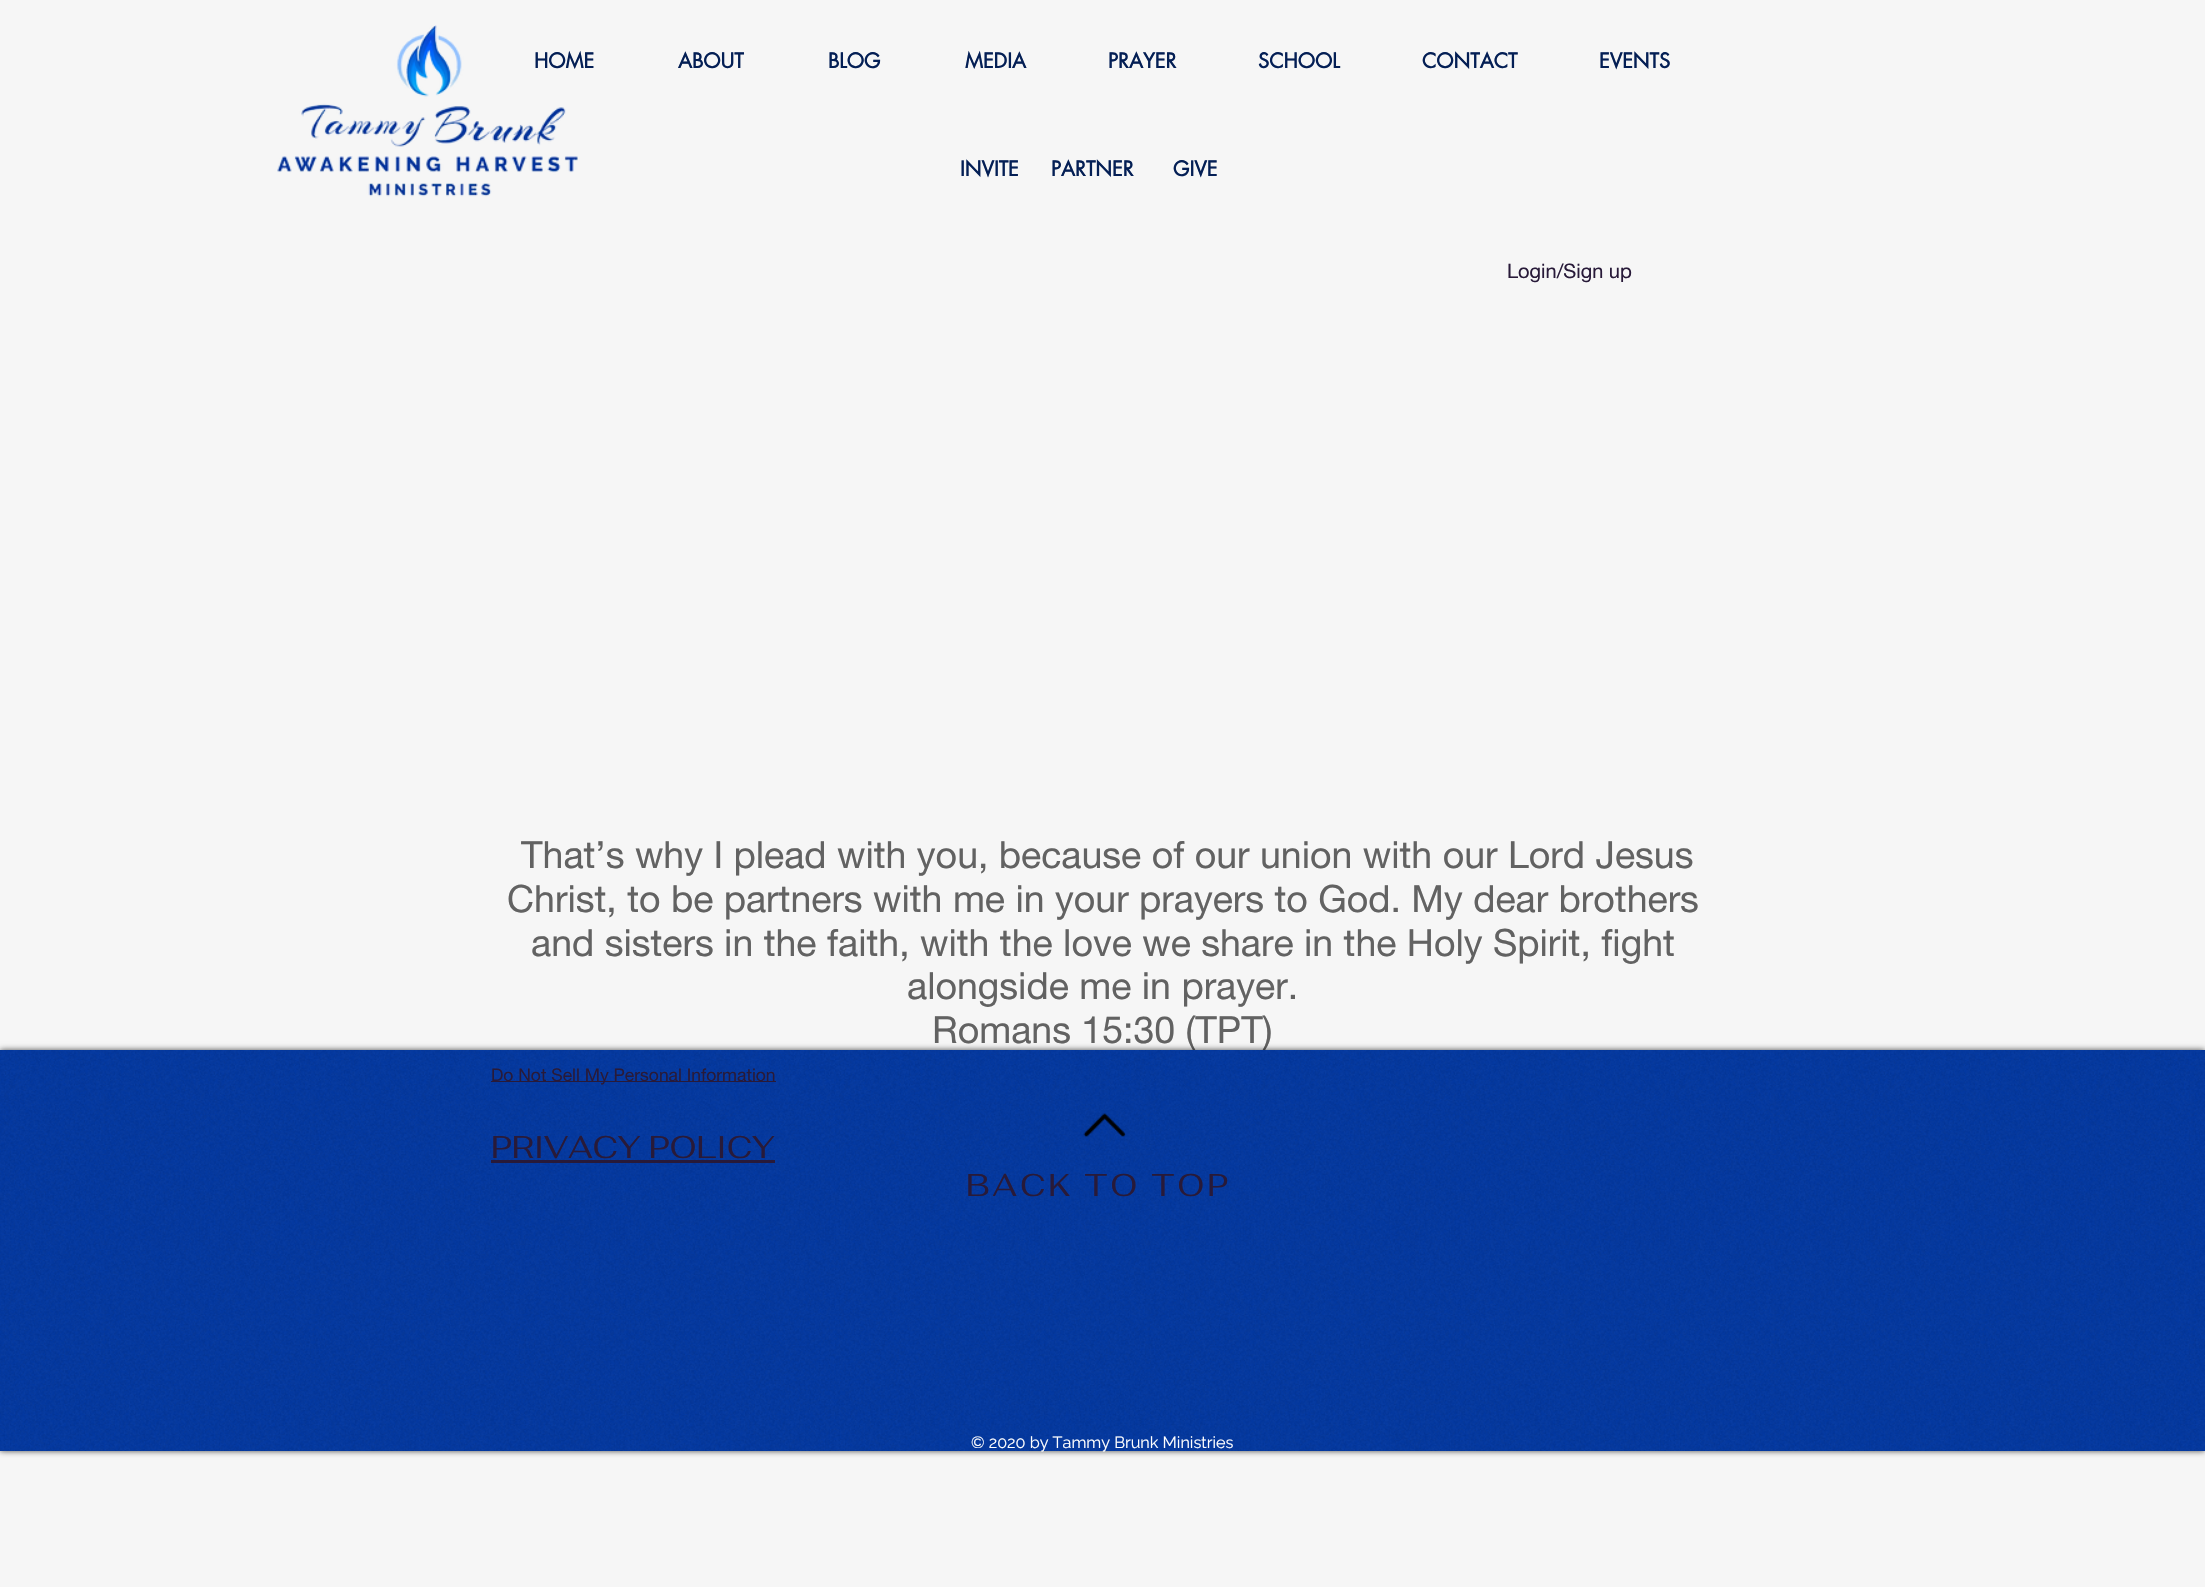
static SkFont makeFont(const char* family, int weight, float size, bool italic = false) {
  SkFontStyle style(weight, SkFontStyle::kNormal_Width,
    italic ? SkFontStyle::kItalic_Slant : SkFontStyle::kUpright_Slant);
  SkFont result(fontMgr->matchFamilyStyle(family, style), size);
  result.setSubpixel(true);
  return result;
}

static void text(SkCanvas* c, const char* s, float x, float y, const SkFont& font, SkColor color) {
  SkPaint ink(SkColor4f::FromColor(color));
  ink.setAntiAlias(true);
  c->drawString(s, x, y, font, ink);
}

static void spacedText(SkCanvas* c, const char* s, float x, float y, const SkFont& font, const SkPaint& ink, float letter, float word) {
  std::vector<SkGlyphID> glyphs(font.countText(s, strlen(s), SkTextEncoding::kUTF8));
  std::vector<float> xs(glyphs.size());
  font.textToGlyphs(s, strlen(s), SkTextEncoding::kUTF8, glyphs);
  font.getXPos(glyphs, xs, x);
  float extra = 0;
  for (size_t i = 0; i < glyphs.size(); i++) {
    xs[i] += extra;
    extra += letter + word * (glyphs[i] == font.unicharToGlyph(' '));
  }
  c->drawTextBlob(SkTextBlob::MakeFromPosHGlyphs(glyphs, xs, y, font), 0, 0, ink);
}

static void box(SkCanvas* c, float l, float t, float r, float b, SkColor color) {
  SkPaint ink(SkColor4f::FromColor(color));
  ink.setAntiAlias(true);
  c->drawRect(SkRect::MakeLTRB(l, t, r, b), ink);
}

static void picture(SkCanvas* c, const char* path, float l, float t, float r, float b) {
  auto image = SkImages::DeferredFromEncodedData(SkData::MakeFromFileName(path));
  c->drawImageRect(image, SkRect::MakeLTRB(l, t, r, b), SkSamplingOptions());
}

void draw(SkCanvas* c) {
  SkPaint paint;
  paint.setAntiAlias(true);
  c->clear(0xfff6f6f6);
  picture(c, "img_01.png", 277, 25, 578, 197);
  SkFont face1 = makeFont("futura", 700, 20);
  text(c, "HOME", 534, 68, face1, 0xff041f55);
  text(c, "ABOUT", 678, 68, face1, 0xff041f55);
  text(c, "BLOG", 828, 68, face1, 0xff041f55);
  text(c, "MEDIA", 965, 68, face1, 0xff041f55);
  text(c, "PRAYER", 1108, 68, face1, 0xff041f55);
  text(c, "SCHOOL", 1258, 68, face1, 0xff041f55);
  text(c, "CONTACT", 1422, 68, face1, 0xff041f55);
  text(c, "EVENTS", 1599, 68, face1, 0xff041f55);
  text(c, "INVITE", 960, 176, face1, 0xff041f55);
  text(c, "PARTNER", 1051, 176, face1, 0xff041f55);
  text(c, "GIVE", 1173, 176, face1, 0xff041f55);
  SkFont face2 = makeFont("helvetica neue", 400, 20);
  text(c, "Login/Sign up", 1507, 278, face2, 0xff281a39);
  SkFont face3 = makeFont("helvetica neue", 400, 37.5f);
  text(c, "That’s why I plead with you, because of our union with our Lord Jesus", 521, 868, face3, 0xff626262);
  text(c, "Christ, to be partners with me in your prayers to God. My dear brothers", 507, 912, face3, 0xff626262);
  text(c, "and sisters in the faith, with the love we share in the Holy Spirit, fight", 531, 956, face3, 0xff626262);
  text(c, "alongside me in prayer.", 907, 999, face3, 0xff626262);
  text(c, "Romans 15:30 (TPT)", 932, 1043, face3, 0xff626262);
  paint.setColor(0xb3000000);
  paint.setMaskFilter(SkMaskFilter::MakeBlur(kNormal_SkBlurStyle, 3));
  c->drawRect(SkRect::MakeLTRB(0, 1050, 2205, 1451), paint);
  paint.setMaskFilter(nullptr);
  box(c, 0, 1050, 2205, 1451, 0xff0338a1);
  picture(c, "img_02.png", 0, 1050, 2205, 1451);
  box(c, 491, 1081, 776, 1082, 0xff281a39);
  SkFont face4 = makeFont("helvetica neue", 400, 17.5f);
  text(c, "Do Not Sell My Personal Information", 491, 1081, face4, 0xff281a39);
  picture(c, "img_03.png", 1083, 1113, 1126, 1137);
  SkFont face5 = makeFont("Fahkwang", 400, 31.25f);
  text(c, "PRIVACY POLICY", 491, 1158, face5, 0xff281a39);
  box(c, 491, 1160, 775, 1163, 0xff281a39);
  paint.setColor(0xff281a39);
  spacedText(c, "BACK TO TOP", 966, 1196, face5, paint, 3.1f, 0);
  SkFont face6 = makeFont("Raleway", 400, 16.25f);
  text(c, "© 2020 by Tammy Brunk Ministries", 971, 1448, face6, 0xffffffff);
}
